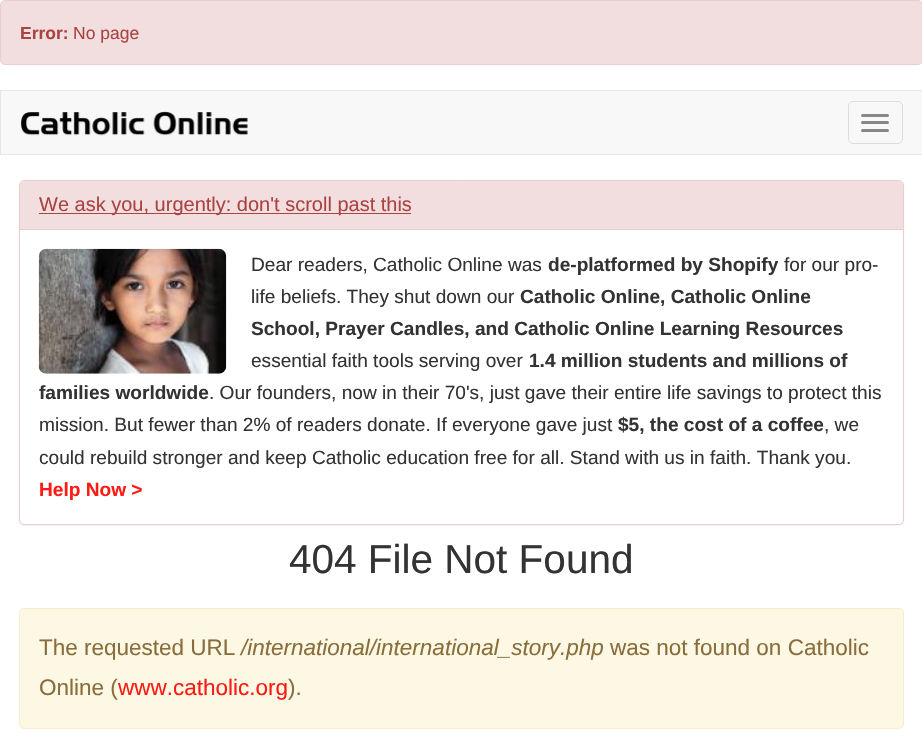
static SkFont makeFont(const char* family, int weight, float size, bool italic = false) {
  SkFontStyle style(weight, SkFontStyle::kNormal_Width,
    italic ? SkFontStyle::kItalic_Slant : SkFontStyle::kUpright_Slant);
  SkFont result(fontMgr->matchFamilyStyle(family, style), size);
  result.setSubpixel(true);
  return result;
}

static void text(SkCanvas* c, const char* s, float x, float y, const SkFont& font, SkColor color) {
  SkPaint ink(SkColor4f::FromColor(color));
  ink.setAntiAlias(true);
  c->drawString(s, x, y, font, ink);
}

static void box(SkCanvas* c, float l, float t, float r, float b, SkColor color) {
  SkPaint ink(SkColor4f::FromColor(color));
  ink.setAntiAlias(true);
  c->drawRect(SkRect::MakeLTRB(l, t, r, b), ink);
}

static void roundBox(SkCanvas* c, float l, float t, float r, float b, float radius, SkColor color) {
  SkPaint ink(SkColor4f::FromColor(color));
  ink.setAntiAlias(true);
  c->drawRoundRect(SkRect::MakeLTRB(l, t, r, b), radius, radius, ink);
}

static void picture(SkCanvas* c, const char* path, float l, float t, float r, float b) {
  auto image = SkImages::DeferredFromEncodedData(SkData::MakeFromFileName(path));
  c->drawImageRect(image, SkRect::MakeLTRB(l, t, r, b), SkSamplingOptions());
}

void draw(SkCanvas* c) {
  SkPaint paint;
  paint.setAntiAlias(true);
  c->clear(0xffffffff);
  paint.setColor(0xfff2dede);
  c->drawRoundRect(SkRect::MakeLTRB(0.5f, 0.5f, 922.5f, 64.5f), 4.5f, 4.5f, paint);
  paint.setStyle(SkPaint::kStroke_Style);
  paint.setStrokeWidth(1);
  paint.setColor(0xffebccd1);
  c->drawRoundRect(SkRect::MakeLTRB(0.5f, 0.5f, 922.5f, 64.5f), 4.5f, 4.5f, paint);
  SkFont face1 = makeFont("Liberation Sans", 700, 17.5f);
  text(c, "Error:", 20, 39, face1, 0xffa94442);
  SkFont face2 = makeFont("Liberation Sans", 400, 17.5f);
  text(c, "No page", 73, 39, face2, 0xffa94442);
  paint.setStyle(SkPaint::kFill_Style);
  paint.setColor(0xfff8f8f8);
  c->drawRect(SkRect::MakeLTRB(0.5f, 90.5f, 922.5f, 154.5f), paint);
  paint.setStyle(SkPaint::kStroke_Style);
  paint.setColor(0xffe7e7e7);
  c->drawRect(SkRect::MakeLTRB(0.5f, 90.5f, 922.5f, 154.5f), paint);
  picture(c, "img_01.png", 20, 111, 248, 136);
  paint.setColor(0xffdddddd);
  c->drawRoundRect(SkRect::MakeLTRB(848.5f, 101.5f, 902.5f, 143.5f), 4.5f, 4.5f, paint);
  roundBox(c, 861, 114, 889, 117, 1.5f, 0xff888888);
  roundBox(c, 861, 121, 889, 124, 1.5f, 0xff888888);
  roundBox(c, 861, 129, 889, 132, 1.5f, 0xff888888);
  paint.setStyle(SkPaint::kFill_Style);
  paint.setColor(0x0d000000);
  paint.setMaskFilter(SkMaskFilter::MakeBlur(kNormal_SkBlurStyle, 0.5f));
  c->drawRoundRect(SkRect::MakeLTRB(19, 181, 904, 526), 5, 5, paint);
  paint.setMaskFilter(nullptr);
  paint.setColor(0xffffffff);
  c->drawRoundRect(SkRect::MakeLTRB(19.5f, 180.5f, 903.5f, 524.5f), 4.5f, 4.5f, paint);
  paint.setStyle(SkPaint::kStroke_Style);
  paint.setColor(0xffebccd1);
  c->drawRoundRect(SkRect::MakeLTRB(19.5f, 180.5f, 903.5f, 524.5f), 4.5f, 4.5f, paint);
  paint.setStyle(SkPaint::kFill_Style);
  paint.setColor(0xfff2dede);
  c->drawPath(SkPathBuilder().moveTo(24, 181).lineTo(899, 181).cubicTo(901, 181, 903, 183, 903, 185).lineTo(903, 230).lineTo(20, 230).lineTo(20, 185).cubicTo(20, 183, 22, 181, 24, 181).close().detach(), paint);
  box(c, 20, 229, 903, 230, 0xffebccd1);
  box(c, 39, 213, 411, 214, 0xffa94442);
  SkFont face3 = makeFont("Liberation Sans", 400, 20);
  text(c, "We ask you, urgently: don't scroll past this", 39, 211, face3, 0xffa94442);
  picture(c, "img_02.png", 38, 248, 227, 374);
  SkFont face4 = makeFont("Liberation Sans", 400, 19.1f);
  text(c, "Dear readers, Catholic Online was", 251, 271, face4, 0xff333333);
  SkFont face5 = makeFont("Liberation Sans", 700, 19.1f);
  text(c, "de-platformed by Shopify", 548, 271, face5, 0xff333333);
  text(c, "for our pro-", 784, 271, face4, 0xff333333);
  text(c, "life beliefs. They shut down our", 251, 303, face4, 0xff333333);
  text(c, "Catholic Online, Catholic Online", 520, 303, face5, 0xff333333);
  text(c, "School, Prayer Candles, and Catholic Online Learning Resources", 251, 335, face5, 0xff333333);
  text(c, "essential faith tools serving over", 251, 367, face4, 0xff333333);
  text(c, "1.4 million students and millions of", 529, 367, face5, 0xff333333);
  text(c, "families worldwide", 39, 399, face5, 0xff333333);
  text(c, ". Our founders, now in their 70's, just gave their entire life savings to protect this", 209, 399, face4, 0xff333333);
  text(c, "mission. But fewer than 2% of readers donate. If everyone gave just", 39, 431, face4, 0xff333333);
  text(c, "$5, the cost of a coffee", 618, 431, face5, 0xff333333);
  text(c, ", we", 824, 431, face4, 0xff333333);
  text(c, "could rebuild stronger and keep Catholic education free for all. Stand with us in faith. Thank you.", 39, 464, face4, 0xff333333);
  text(c, "Help Now >", 39, 496, face5, 0xfffd1b14);
  SkFont face6 = makeFont("Liberation Sans", 400, 40.5f);
  text(c, "404 File Not Found", 289, 573, face6, 0xff333333);
  paint.setColor(0xfffcf8e3);
  c->drawRoundRect(SkRect::MakeLTRB(19.5f, 608.5f, 903.5f, 728.5f), 4.5f, 4.5f, paint);
  paint.setStyle(SkPaint::kStroke_Style);
  paint.setColor(0xfffaebcc);
  c->drawRoundRect(SkRect::MakeLTRB(19.5f, 608.5f, 903.5f, 728.5f), 4.5f, 4.5f, paint);
  SkFont face7 = makeFont("Liberation Sans", 400, 22.5f);
  text(c, "The requested URL", 39, 655, face7, 0xff8a6d3b);
  SkFont face8 = makeFont("Liberation Sans", 400, 22.5f, true);
  text(c, "/international/international_story.php", 241, 655, face8, 0xff8a6d3b);
  text(c, "was not found on Catholic", 610, 655, face7, 0xff8a6d3b);
  text(c, "Online (", 39, 695, face7, 0xff8a6d3b);
  text(c, "www.catholic.org", 118, 695, face7, 0xfffd1b14);
  text(c, ").", 288, 695, face7, 0xff8a6d3b);
}
